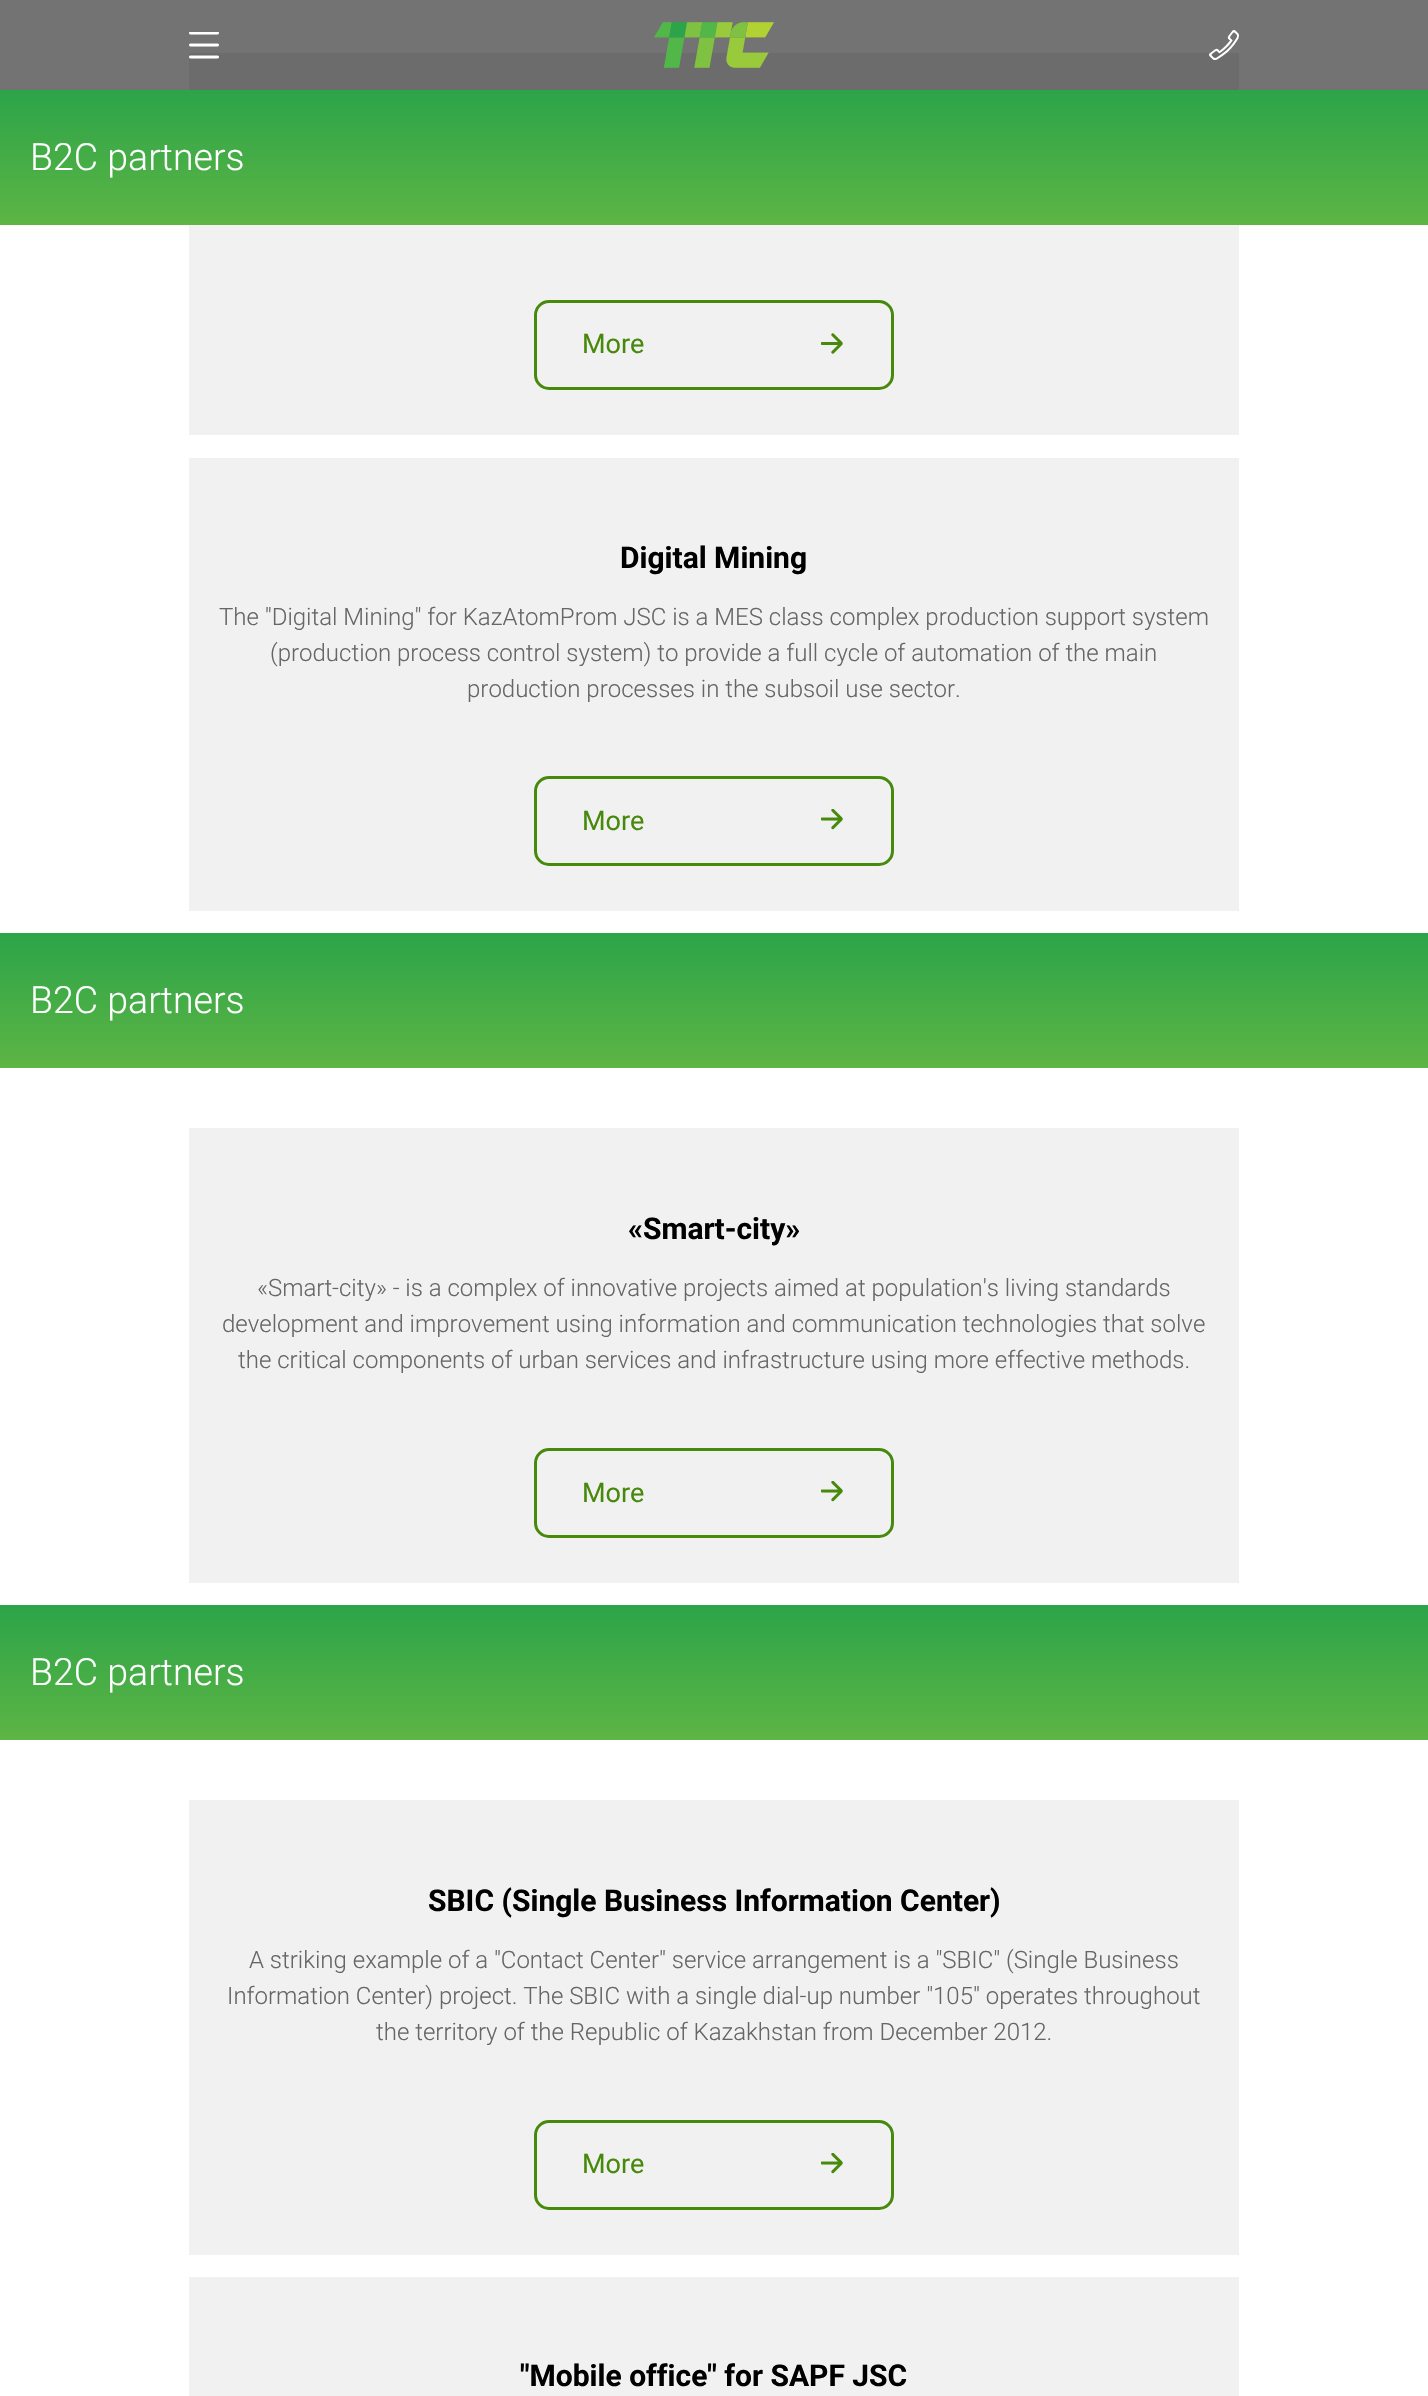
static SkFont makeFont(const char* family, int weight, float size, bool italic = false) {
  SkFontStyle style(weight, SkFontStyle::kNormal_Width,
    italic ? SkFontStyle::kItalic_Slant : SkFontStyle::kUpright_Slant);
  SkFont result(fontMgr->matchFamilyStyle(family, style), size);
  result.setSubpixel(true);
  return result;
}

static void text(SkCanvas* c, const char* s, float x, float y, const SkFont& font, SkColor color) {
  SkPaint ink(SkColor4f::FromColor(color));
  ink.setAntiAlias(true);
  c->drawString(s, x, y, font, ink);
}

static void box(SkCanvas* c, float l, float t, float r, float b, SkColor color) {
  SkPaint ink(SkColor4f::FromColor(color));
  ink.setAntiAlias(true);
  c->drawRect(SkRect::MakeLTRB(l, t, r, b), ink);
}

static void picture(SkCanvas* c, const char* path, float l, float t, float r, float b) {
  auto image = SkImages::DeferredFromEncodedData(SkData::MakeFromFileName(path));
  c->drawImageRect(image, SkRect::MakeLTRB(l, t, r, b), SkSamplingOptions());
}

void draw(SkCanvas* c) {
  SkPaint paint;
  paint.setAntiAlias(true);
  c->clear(0xffffffff);
  box(c, 0, 0, 1428, 90, 0xff737373);
  box(c, 189, 53, 1239, 90, 0xff6c6c6c);
  picture(c, "img_01.png", 189, 32, 219, 59);
  picture(c, "img_02.png", 654, 22, 774, 68);
  picture(c, "img_03.png", 1209, 30, 1239, 60);
  {
    const SkColor colors[] = {0xff2ca449, 0xff5db544};
    const float stops[] = {0, 1};
    const SkPoint ends[] = {{714, 90}, {714, 225}};
    paint.setShader(SkGradientShader::MakeLinear(ends, colors, stops, 2, SkTileMode::kClamp));
    paint.setAlpha(255);
  }
  c->drawRect(SkRect::MakeLTRB(0, 90, 1428, 225), paint);
  SkFont face1 = makeFont("Roboto", 300, 37.5f);
  text(c, "B2C partners", 30, 170, face1, 0xffffffff);
  box(c, 189, 225, 1239, 435, 0xfff1f1f1);
  paint.setStyle(SkPaint::kStroke_Style);
  paint.setStrokeWidth(3);
  paint.setShader(nullptr);
  paint.setColor(0xff47890b);
  c->drawRoundRect(SkRect::MakeLTRB(535.5f, 301.5f, 892.5f, 388.5f), 13.5f, 13.5f, paint);
  SkFont face2 = makeFont("Roboto", 400, 27);
  text(c, "More", 582, 353, face2, 0xff47890b);
  picture(c, "img_04.png", 821, 333, 843, 354);
  box(c, 189, 458, 1239, 911, 0xfff1f1f1);
  SkFont face3 = makeFont("Roboto", 700, 30);
  text(c, "Digital Mining", 620, 568, face3, 0xff000000);
  SkFont face4 = makeFont("Roboto", 300, 24);
  text(c, "The \"Digital Mining\" for KazAtomProm JSC is a MES class complex production support system", 219, 625, face4, 0xff666666);
  text(c, "(production process control system) to provide a full cycle of automation of the main", 270, 661, face4, 0xff666666);
  text(c, "production processes in the subsoil use sector.", 467, 697, face4, 0xff666666);
  c->drawRoundRect(SkRect::MakeLTRB(535.5f, 777.5f, 892.5f, 864.5f), 13.5f, 13.5f, paint);
  text(c, "More", 582, 830, face2, 0xff47890b);
  picture(c, "img_05.png", 821, 809, 843, 830);
  paint.setStyle(SkPaint::kFill_Style);
  {
    const SkColor colors[] = {0xff2ca449, 0xff5db544};
    const float stops[] = {0, 1};
    const SkPoint ends[] = {{714, 933}, {714, 1068}};
    paint.setShader(SkGradientShader::MakeLinear(ends, colors, stops, 2, SkTileMode::kClamp));
    paint.setAlpha(255);
  }
  c->drawRect(SkRect::MakeLTRB(0, 933, 1428, 1068), paint);
  text(c, "B2C partners", 30, 1013, face1, 0xffffffff);
  box(c, 189, 1128, 1239, 1583, 0xfff1f1f1);
  text(c, "«Smart-city»", 628, 1239, face3, 0xff000000);
  text(c, "«Smart-city» - is a complex of innovative projects aimed at population's living standards", 257, 1296, face4, 0xff666666);
  text(c, "development and improvement using information and communication technologies that solve", 222, 1332, face4, 0xff666666);
  text(c, "the critical components of urban services and infrastructure using more effective methods.", 238, 1368, face4, 0xff666666);
  paint.setStyle(SkPaint::kStroke_Style);
  paint.setShader(nullptr);
  paint.setColor(0xff47890b);
  c->drawRoundRect(SkRect::MakeLTRB(535.5f, 1449.5f, 892.5f, 1536.5f), 13.5f, 13.5f, paint);
  text(c, "More", 582, 1502, face2, 0xff47890b);
  picture(c, "img_05.png", 821, 1481, 843, 1502);
  paint.setStyle(SkPaint::kFill_Style);
  {
    const SkColor colors[] = {0xff2ca449, 0xff5db544};
    const float stops[] = {0, 1};
    const SkPoint ends[] = {{714, 1605}, {714, 1740}};
    paint.setShader(SkGradientShader::MakeLinear(ends, colors, stops, 2, SkTileMode::kClamp));
    paint.setAlpha(255);
  }
  c->drawRect(SkRect::MakeLTRB(0, 1605, 1428, 1740), paint);
  text(c, "B2C partners", 30, 1685, face1, 0xffffffff);
  box(c, 189, 1800, 1239, 2255, 0xfff1f1f1);
  text(c, "SBIC (Single Business Information Center)", 428, 1911, face3, 0xff000000);
  text(c, "A striking example of a \"Contact Center\" service arrangement is a \"SBIC\" (Single Business", 249, 1968, face4, 0xff666666);
  text(c, "Information Center) project. The SBIC with a single dial-up number \"105\" operates throughout", 227, 2004, face4, 0xff666666);
  text(c, "the territory of the Republic of Kazakhstan from December 2012.", 376, 2040, face4, 0xff666666);
  paint.setStyle(SkPaint::kStroke_Style);
  paint.setShader(nullptr);
  paint.setColor(0xff47890b);
  c->drawRoundRect(SkRect::MakeLTRB(535.5f, 2121.5f, 892.5f, 2208.5f), 13.5f, 13.5f, paint);
  text(c, "More", 582, 2173, face2, 0xff47890b);
  picture(c, "img_05.png", 821, 2153, 843, 2174);
  box(c, 189, 2277, 1239, 2396, 0xfff1f1f1);
  text(c, "\"Mobile office\" for SAPF JSC", 520, 2386, face3, 0xff000000);
}
